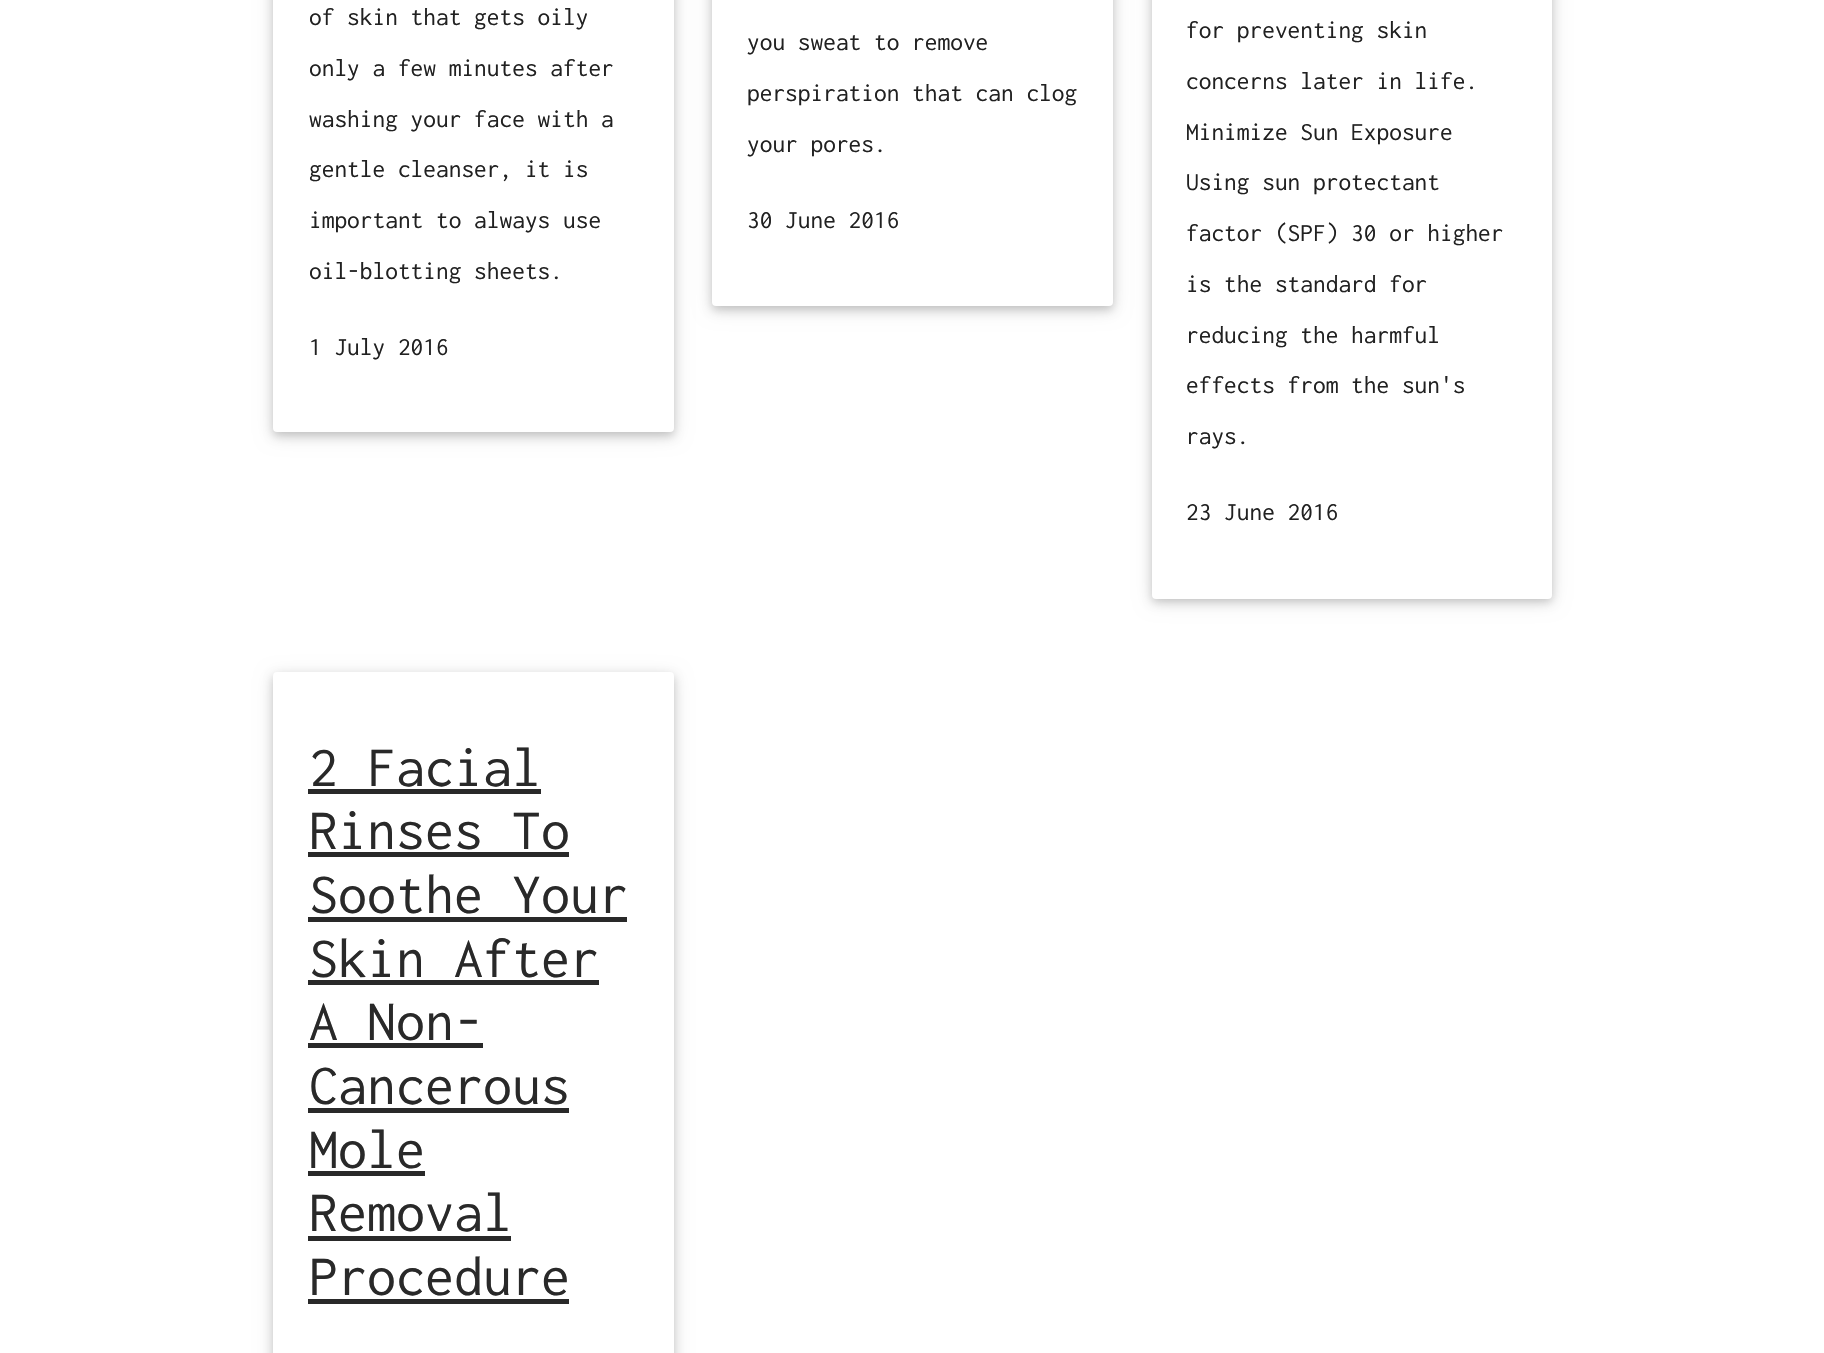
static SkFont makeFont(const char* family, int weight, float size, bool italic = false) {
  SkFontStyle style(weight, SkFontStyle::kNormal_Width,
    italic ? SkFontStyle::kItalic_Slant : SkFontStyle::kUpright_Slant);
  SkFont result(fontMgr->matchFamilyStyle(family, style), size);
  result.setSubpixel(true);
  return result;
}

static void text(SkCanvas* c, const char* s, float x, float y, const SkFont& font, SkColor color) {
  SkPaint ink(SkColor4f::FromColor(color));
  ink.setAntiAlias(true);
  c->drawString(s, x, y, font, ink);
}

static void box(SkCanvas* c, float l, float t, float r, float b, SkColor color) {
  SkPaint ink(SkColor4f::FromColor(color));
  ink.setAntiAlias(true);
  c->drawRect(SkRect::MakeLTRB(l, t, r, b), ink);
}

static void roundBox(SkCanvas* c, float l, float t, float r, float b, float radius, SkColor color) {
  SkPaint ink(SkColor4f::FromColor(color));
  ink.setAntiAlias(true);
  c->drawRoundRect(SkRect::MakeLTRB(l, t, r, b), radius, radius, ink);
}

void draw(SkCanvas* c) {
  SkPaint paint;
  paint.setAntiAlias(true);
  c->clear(0xffffffff);
  paint.setColor(0x1f000000);
  paint.setMaskFilter(SkMaskFilter::MakeBlur(kNormal_SkBlurStyle, 9));
  c->drawRoundRect(SkRect::MakeLTRB(273, -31, 674, 436), 4, 4, paint);
  paint.setMaskFilter(nullptr);
  paint.setColor(0x29000000);
  paint.setMaskFilter(SkMaskFilter::MakeBlur(kNormal_SkBlurStyle, 4.5f));
  c->drawRoundRect(SkRect::MakeLTRB(273, -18, 674, 436), 4, 4, paint);
  paint.setMaskFilter(nullptr);
  roundBox(c, 273, -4, 674, 432, 4, 0xffffffff);
  SkFont face1 = makeFont("Inconsolata", 400, 25.4f);
  text(c, "of skin that gets oily", 309, 25, face1, 0xff212121);
  text(c, "only a few minutes after", 309, 76, face1, 0xff212121);
  text(c, "washing your face with a", 309, 127, face1, 0xff212121);
  text(c, "gentle cleanser, it is", 309, 177, face1, 0xff212121);
  text(c, "important to always use", 309, 228, face1, 0xff212121);
  text(c, "oil-blotting sheets.", 309, 279, face1, 0xff212121);
  text(c, "1 July 2016", 309, 355, face1, 0xff212121);
  paint.setColor(0x1f000000);
  paint.setMaskFilter(SkMaskFilter::MakeBlur(kNormal_SkBlurStyle, 9));
  c->drawRoundRect(SkRect::MakeLTRB(712, -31, 1113, 310), 4, 4, paint);
  paint.setMaskFilter(nullptr);
  paint.setColor(0x29000000);
  paint.setMaskFilter(SkMaskFilter::MakeBlur(kNormal_SkBlurStyle, 4.5f));
  c->drawRoundRect(SkRect::MakeLTRB(712, -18, 1113, 310), 4, 4, paint);
  paint.setMaskFilter(nullptr);
  roundBox(c, 712, -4, 1113, 306, 4, 0xffffffff);
  text(c, "you sweat to remove", 747, 50, face1, 0xff212121);
  text(c, "perspiration that can clog", 747, 101, face1, 0xff212121);
  text(c, "your pores.", 747, 152, face1, 0xff212121);
  text(c, "30 June 2016", 747, 228, face1, 0xff212121);
  paint.setColor(0x1f000000);
  paint.setMaskFilter(SkMaskFilter::MakeBlur(kNormal_SkBlurStyle, 9));
  c->drawRoundRect(SkRect::MakeLTRB(1152, -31, 1552, 602), 4, 4, paint);
  paint.setMaskFilter(nullptr);
  paint.setColor(0x29000000);
  paint.setMaskFilter(SkMaskFilter::MakeBlur(kNormal_SkBlurStyle, 4.5f));
  c->drawRoundRect(SkRect::MakeLTRB(1152, -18, 1552, 602), 4, 4, paint);
  paint.setMaskFilter(nullptr);
  roundBox(c, 1152, -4, 1552, 599, 4, 0xffffffff);
  text(c, "for preventing skin", 1186, 38, face1, 0xff212121);
  text(c, "concerns later in life.", 1186, 89, face1, 0xff212121);
  text(c, "Minimize Sun Exposure", 1186, 140, face1, 0xff212121);
  text(c, "Using sun protectant", 1186, 190, face1, 0xff212121);
  text(c, "factor (SPF) 30 or higher", 1186, 241, face1, 0xff212121);
  text(c, "is the standard for", 1186, 292, face1, 0xff212121);
  text(c, "reducing the harmful", 1186, 343, face1, 0xff212121);
  text(c, "effects from the sun's", 1186, 393, face1, 0xff212121);
  text(c, "rays.", 1186, 444, face1, 0xff212121);
  text(c, "23 June 2016", 1186, 520, face1, 0xff212121);
  paint.setColor(0x1f000000);
  paint.setMaskFilter(SkMaskFilter::MakeBlur(kNormal_SkBlurStyle, 9));
  c->drawRoundRect(SkRect::MakeLTRB(273, 676, 674, 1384), 4, 4, paint);
  paint.setMaskFilter(nullptr);
  paint.setColor(0x29000000);
  paint.setMaskFilter(SkMaskFilter::MakeBlur(kNormal_SkBlurStyle, 4.5f));
  c->drawRoundRect(SkRect::MakeLTRB(273, 676, 674, 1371), 4, 4, paint);
  paint.setMaskFilter(nullptr);
  roundBox(c, 273, 672, 674, 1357, 4, 0xffffffff);
  SkFont face2 = makeFont("Inconsolata", 400, 58);
  text(c, "2 Facial", 309, 786, face2, 0xff292929);
  box(c, 308, 789, 541, 794, 0xff292929);
  text(c, "Rinses To", 309, 849, face2, 0xff292929);
  box(c, 308, 852, 569, 857, 0xff292929);
  text(c, "Soothe Your", 309, 913, face2, 0xff292929);
  box(c, 308, 917, 627, 922, 0xff292929);
  text(c, "Skin After", 309, 977, face2, 0xff292929);
  box(c, 308, 980, 599, 985, 0xff292929);
  text(c, "A Non-", 309, 1040, face2, 0xff292929);
  box(c, 308, 1043, 483, 1048, 0xff292929);
  text(c, "Cancerous", 309, 1104, face2, 0xff292929);
  box(c, 308, 1108, 569, 1113, 0xff292929);
  text(c, "Mole", 309, 1168, face2, 0xff292929);
  box(c, 308, 1171, 425, 1176, 0xff292929);
  text(c, "Removal", 309, 1231, face2, 0xff292929);
  box(c, 308, 1236, 511, 1241, 0xff292929);
  text(c, "Procedure", 309, 1295, face2, 0xff292929);
  box(c, 308, 1299, 569, 1304, 0xff292929);
}
